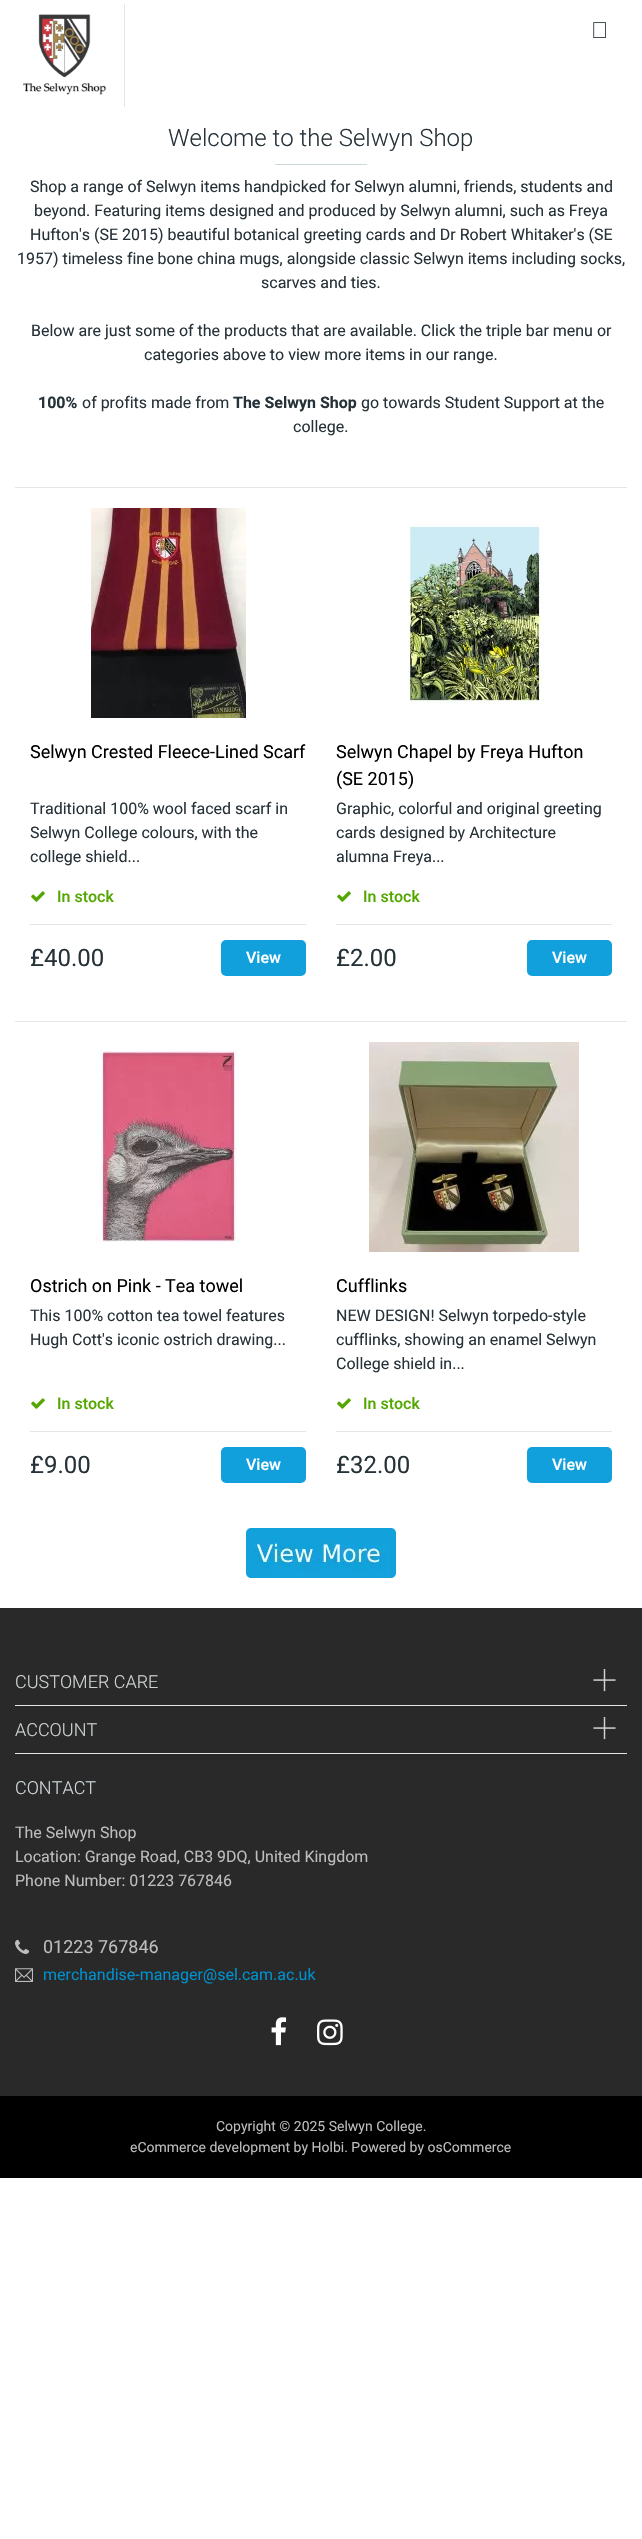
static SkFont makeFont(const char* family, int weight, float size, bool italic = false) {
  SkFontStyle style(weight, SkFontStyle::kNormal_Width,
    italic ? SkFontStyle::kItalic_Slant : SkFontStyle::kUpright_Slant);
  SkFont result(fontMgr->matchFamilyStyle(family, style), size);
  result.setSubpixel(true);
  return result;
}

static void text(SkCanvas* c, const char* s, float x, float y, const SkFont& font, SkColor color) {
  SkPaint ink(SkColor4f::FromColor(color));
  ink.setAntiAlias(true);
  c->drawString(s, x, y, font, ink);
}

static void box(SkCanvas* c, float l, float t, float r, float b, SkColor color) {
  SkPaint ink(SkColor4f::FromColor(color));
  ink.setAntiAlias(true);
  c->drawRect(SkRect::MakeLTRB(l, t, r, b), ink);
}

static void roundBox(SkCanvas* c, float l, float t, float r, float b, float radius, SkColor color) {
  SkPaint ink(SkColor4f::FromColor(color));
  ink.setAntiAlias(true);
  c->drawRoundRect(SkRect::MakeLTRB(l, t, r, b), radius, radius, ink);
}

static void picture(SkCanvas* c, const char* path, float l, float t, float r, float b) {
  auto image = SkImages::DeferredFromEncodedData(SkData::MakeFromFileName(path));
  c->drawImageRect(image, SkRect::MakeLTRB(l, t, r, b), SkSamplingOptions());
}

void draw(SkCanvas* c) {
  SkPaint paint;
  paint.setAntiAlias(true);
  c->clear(0xffffffff);
  box(c, 124, 4, 125, 107, 0xffe5e5e5);
  picture(c, "img_01.png", 23, 14, 107, 95);
  picture(c, "img_02.png", 593, 22, 606, 38);
  SkFont face1 = makeFont("Roboto", 300, 24);
  text(c, "Welcome to the Selwyn Shop", 168, 146, face1, 0xff263238);
  box(c, 275, 164, 367, 165, 0xffcfd8dc);
  SkFont face2 = makeFont("Roboto", 400, 16);
  text(c, "Shop a range of Selwyn items handpicked for Selwyn alumni, friends, students and", 30, 192, face2, 0xff263238);
  text(c, "beyond. Featuring items designed and produced by Selwyn alumni, such as Freya", 34, 216, face2, 0xff263238);
  text(c, "Hufton's (SE 2015) beautiful botanical greeting cards and Dr Robert Whitaker's (SE", 30, 240, face2, 0xff263238);
  text(c, "1957) timeless fine bone china mugs, alongside classic Selwyn items including socks,", 17, 264, face2, 0xff263238);
  text(c, "scarves and ties.", 261, 288, face2, 0xff263238);
  text(c, "Below are just some of the products that are available. Click the triple bar menu or", 31, 336, face2, 0xff263238);
  text(c, "categories above to view more items in our range.", 144, 360, face2, 0xff263238);
  SkFont face3 = makeFont("Roboto", 700, 16);
  text(c, "100%", 38, 408, face3, 0xff263238);
  text(c, "of profits made from", 82, 408, face2, 0xff263238);
  text(c, "The Selwyn Shop", 233, 408, face3, 0xff263238);
  text(c, "go towards Student Support at the", 361, 408, face2, 0xff263238);
  text(c, "college.", 293, 432, face2, 0xff263238);
  box(c, 15, 487, 627, 488, 0xffe5e5e5);
  picture(c, "img_03.png", 91, 508, 246, 718);
  SkFont face4 = makeFont("Roboto", 400, 18);
  text(c, "Selwyn Crested Fleece-Lined Scarf", 30, 758, face4, 0xff000000);
  text(c, "Traditional 100% wool faced scarf in", 30, 814, face2, 0xff263238);
  text(c, "Selwyn College colours, with the", 30, 838, face2, 0xff263238);
  text(c, "college shield...", 30, 862, face2, 0xff263238);
  box(c, 30, 924, 306, 925, 0xffe5e5e5);
  picture(c, "img_04.png", 31, 891, 45, 902);
  SkFont face5 = makeFont("Roboto", 500, 16);
  text(c, "In stock", 57, 902, face5, 0xff53a700);
  SkFont face6 = makeFont("Roboto", 400, 24);
  text(c, "£40.00", 30, 966, face6, 0xff263238);
  roundBox(c, 221, 940, 306, 976, 5, 0xff11a0db);
  text(c, "View", 246, 963, face5, 0xffffffff);
  picture(c, "img_05.png", 408, 524, 544, 705);
  text(c, "Selwyn Chapel by Freya Hufton", 336, 758, face4, 0xff000000);
  text(c, "(SE 2015)", 336, 785, face4, 0xff000000);
  text(c, "Graphic, colorful and original greeting", 336, 814, face2, 0xff263238);
  text(c, "cards designed by Architecture", 336, 838, face2, 0xff263238);
  text(c, "alumna Freya...", 336, 862, face2, 0xff263238);
  box(c, 336, 924, 612, 925, 0xffe5e5e5);
  picture(c, "img_04.png", 337, 891, 351, 902);
  text(c, "In stock", 363, 902, face5, 0xff53a700);
  text(c, "£2.00", 336, 966, face6, 0xff263238);
  roundBox(c, 527, 940, 612, 976, 5, 0xff11a0db);
  text(c, "View", 552, 963, face5, 0xffffffff);
  box(c, 15, 1021, 627, 1022, 0xffe5e5e5);
  picture(c, "img_06.png", 96, 1050, 241, 1243);
  text(c, "Ostrich on Pink - Tea towel", 30, 1292, face4, 0xff000000);
  text(c, "This 100% cotton tea towel features", 30, 1321, face2, 0xff263238);
  text(c, "Hugh Cott's iconic ostrich drawing...", 30, 1345, face2, 0xff263238);
  box(c, 30, 1431, 306, 1432, 0xffe5e5e5);
  picture(c, "img_04.png", 31, 1398, 45, 1409);
  text(c, "In stock", 57, 1409, face5, 0xff53a700);
  text(c, "£9.00", 30, 1473, face6, 0xff263238);
  roundBox(c, 221, 1447, 306, 1483, 5, 0xff11a0db);
  text(c, "View", 246, 1470, face5, 0xffffffff);
  picture(c, "img_07.png", 369, 1042, 579, 1252);
  text(c, "Cufflinks", 336, 1292, face4, 0xff000000);
  text(c, "NEW DESIGN! Selwyn torpedo-style", 336, 1321, face2, 0xff263238);
  text(c, "cufflinks, showing an enamel Selwyn", 336, 1345, face2, 0xff263238);
  text(c, "College shield in...", 336, 1369, face2, 0xff263238);
  box(c, 336, 1431, 612, 1432, 0xffe5e5e5);
  picture(c, "img_04.png", 337, 1398, 351, 1409);
  text(c, "In stock", 363, 1409, face5, 0xff53a700);
  text(c, "£32.00", 336, 1473, face6, 0xff263238);
  roundBox(c, 527, 1447, 612, 1483, 5, 0xff11a0db);
  text(c, "View", 552, 1470, face5, 0xffffffff);
  picture(c, "img_08.png", 246, 1528, 396, 1578);
  box(c, 0, 1608, 642, 2096, 0xff292929);
  box(c, 15, 1705, 627, 1706, 0xffe5e5e5);
  SkFont face7 = makeFont("Roboto", 300, 18);
  text(c, "CUSTOMER CARE", 15, 1688, face7, 0xffcfd2d4);
  picture(c, "img_09.png", 593, 1669, 616, 1692);
  box(c, 15, 1753, 627, 1754, 0xffe5e5e5);
  text(c, "ACCOUNT", 15, 1736, face7, 0xffcfd2d4);
  picture(c, "img_09.png", 593, 1717, 616, 1740);
  text(c, "CONTACT", 15, 1794, face7, 0xffcfd8dc);
  text(c, "The Selwyn Shop", 15, 1838, face2, 0xffbdbdbd);
  text(c, "Location: Grange Road, CB3 9DQ, United Kingdom", 15, 1862, face2, 0xffbdbdbd);
  text(c, "Phone Number: 01223 767846", 15, 1886, face2, 0xffbdbdbd);
  picture(c, "img_10.png", 15, 1939, 30, 1954);
  text(c, "01223 767846", 43, 1953, face4, 0xffbdbdbd);
  picture(c, "img_11.png", 15, 1968, 33, 1982);
  text(c, "merchandise-manager@sel.cam.ac.uk", 43, 1980, face2, 0xff0090cd);
  picture(c, "img_12.png", 271, 2017, 287, 2046);
  picture(c, "img_13.png", 317, 2019, 343, 2046);
  box(c, 0, 2096, 642, 2178, 0xff000000);
  SkFont face8 = makeFont("Roboto", 400, 14);
  text(c, "Copyright © 2025 Selwyn College.", 216, 2131, face8, 0xffbdbdbd);
  text(c, "eCommerce development by Holbi. Powered by osCommerce", 130, 2152, face8, 0xffbdbdbd);
}
